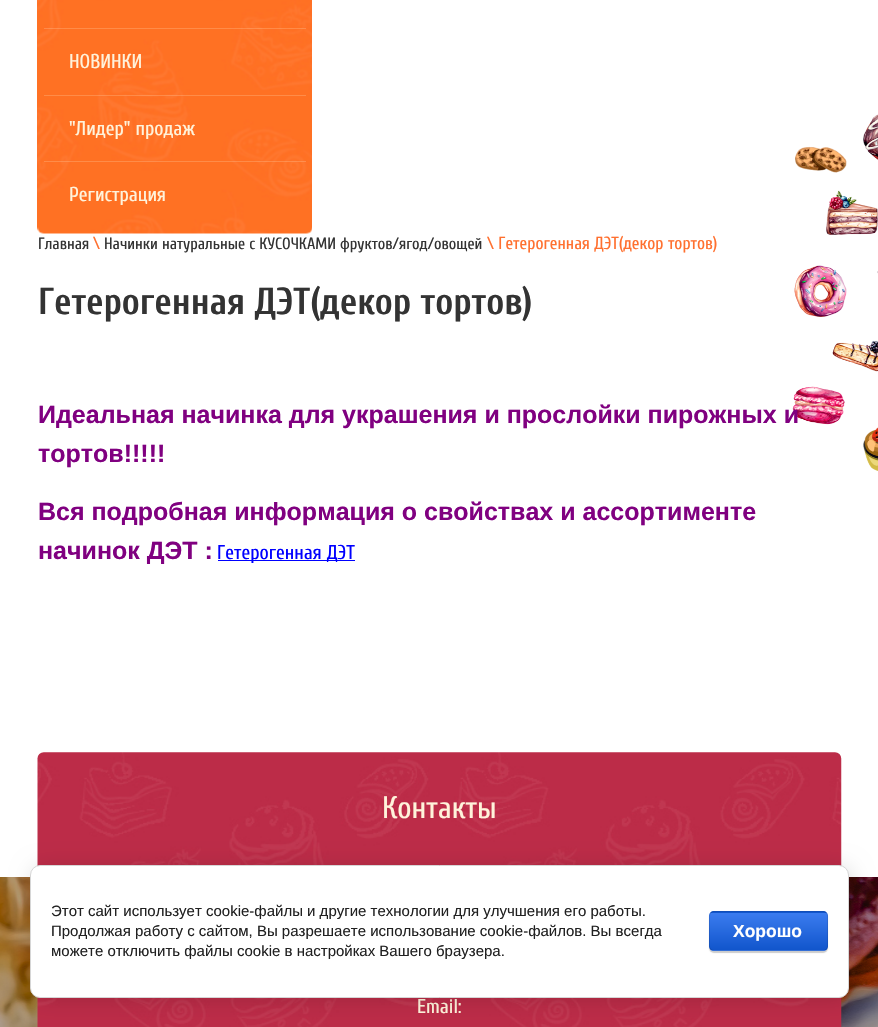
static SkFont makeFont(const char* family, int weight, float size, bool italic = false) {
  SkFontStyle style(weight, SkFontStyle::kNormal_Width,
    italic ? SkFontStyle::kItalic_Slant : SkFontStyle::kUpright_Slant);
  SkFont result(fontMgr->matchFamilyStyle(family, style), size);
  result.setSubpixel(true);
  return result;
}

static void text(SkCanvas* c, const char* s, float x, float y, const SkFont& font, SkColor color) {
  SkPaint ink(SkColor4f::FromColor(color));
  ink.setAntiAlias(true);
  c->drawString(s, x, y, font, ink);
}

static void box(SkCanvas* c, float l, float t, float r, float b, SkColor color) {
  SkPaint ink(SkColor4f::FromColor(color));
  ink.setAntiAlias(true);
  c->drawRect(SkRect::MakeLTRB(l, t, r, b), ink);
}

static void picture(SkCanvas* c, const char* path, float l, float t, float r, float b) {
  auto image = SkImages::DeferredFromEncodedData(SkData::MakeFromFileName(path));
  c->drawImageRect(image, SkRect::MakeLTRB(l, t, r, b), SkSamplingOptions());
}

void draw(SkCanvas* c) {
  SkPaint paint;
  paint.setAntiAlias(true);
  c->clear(0xffffffff);
  picture(c, "img_01.png", 37, 0, 312, 234);
  box(c, 44, 28, 306, 29, 0x33fff3db);
  SkFont face1 = makeFont("Cuprum", 400, 20);
  text(c, "НОВИНКИ", 69, 68, face1, 0xfffff3db);
  box(c, 44, 95, 306, 96, 0x33fff3db);
  text(c, "\"Лидер\" продаж", 69, 135, face1, 0xfffff3db);
  box(c, 44, 161, 306, 162, 0x33fff3db);
  text(c, "Регистрация", 69, 201, face1, 0xfffff3db);
  SkFont face2 = makeFont("Cuprum", 400, 16.25f);
  text(c, "Главная", 38, 249, face2, 0xff333333);
  SkFont face3 = makeFont("Cuprum", 400, 17.5f);
  text(c, "\\", 93, 249, face3, 0xffff702f);
  text(c, "Начинки натуральные с КУСОЧКАМИ фруктов/ягод/овощей", 104, 249, face2, 0xff333333);
  text(c, "\\ Гетерогенная ДЭТ(декор тортов)", 487, 249, face3, 0xffff702f);
  SkFont face4 = makeFont("Cuprum", 700, 37.5f);
  text(c, "Гетерогенная ДЭТ(декор тортов)", 38, 314, face4, 0xff333333);
  picture(c, "img_02.png", 792, 114, 878, 471);
  SkFont face5 = makeFont("Liberation Sans", 700, 25);
  text(c, "Идеальная начинка для украшения и прослойки пирожных и", 38, 423, face5, 0xff800080);
  text(c, "тортов!!!!!", 38, 462, face5, 0xff800080);
  text(c, "Вся подробная информация о свойствах и ассортименте", 38, 520, face5, 0xff800080);
  text(c, "начинок ДЭТ :", 38, 559, face5, 0xff800080);
  box(c, 218, 560, 355, 561, 0xff0000ff);
  text(c, "Гетерогенная ДЭТ", 217, 559, face1, 0xff0000ff);
  picture(c, "img_03.png", 0, 877, 878, 1027);
  picture(c, "img_04.png", 37, 752, 842, 1027);
  SkFont face6 = makeFont("Cuprum", 400, 31);
  text(c, "Контакты", 382, 818, face6, 0xfffff3db);
  text(c, "Email:", 417, 1013, face1, 0xfffff3db);
  paint.setColor(0x24000000);
  paint.setMaskFilter(SkMaskFilter::MakeBlur(kNormal_SkBlurStyle, 11));
  c->drawRoundRect(SkRect::MakeLTRB(33, 868, 851, 1000), 10, 10, paint);
  paint.setMaskFilter(nullptr);
  paint.setColor(0xffffffff);
  c->drawRoundRect(SkRect::MakeLTRB(30.5f, 865.5f, 848.5f, 997.5f), 9.5f, 9.5f, paint);
  paint.setStyle(SkPaint::kStroke_Style);
  paint.setStrokeWidth(1);
  paint.setColor(0xffd6d6d6);
  c->drawRoundRect(SkRect::MakeLTRB(30.5f, 865.5f, 848.5f, 997.5f), 9.5f, 9.5f, paint);
  SkFont face7 = makeFont("Liberation Sans", 400, 15);
  text(c, "Этот сайт использует cookie-файлы и другие технологии для улучшения его работы.", 51, 916, face7, 0xff212121);
  text(c, "Продолжая работу с сайтом, Вы разрешаете использование cookie-файлов. Вы всегда", 51, 936, face7, 0xff212121);
  text(c, "можете отключить файлы cookie в настройках Вашего браузера.", 51, 956, face7, 0xff212121);
  paint.setStyle(SkPaint::kFill_Style);
  paint.setColor(0x33000000);
  paint.setMaskFilter(SkMaskFilter::MakeBlur(kNormal_SkBlurStyle, 0.5f));
  c->drawRoundRect(SkRect::MakeLTRB(709, 913, 828, 953), 5, 5, paint);
  paint.setMaskFilter(nullptr);
  c->save();
  c->clipPath(SkPathBuilder().moveTo(714, 911).lineTo(823, 911).cubicTo(826, 911, 828, 913, 828, 916).lineTo(828, 946).cubicTo(828, 949, 826, 951, 823, 951).lineTo(714, 951).cubicTo(711, 951, 709, 949, 709, 946).lineTo(709, 916).cubicTo(709, 913, 711, 911, 714, 911).close().detach(), true);
  {
    const SkColor colors[] = {0xff3b7cef, 0xff1155cc};
    const float stops[] = {0, 1};
    const SkPoint ends[] = {{768, 875}, {768, 913}};
    paint.setShader(SkGradientShader::MakeLinear(ends, colors, stops, 2, SkTileMode::kClamp));
    paint.setAlpha(255);
  }
  c->drawRect(SkRect::MakeLTRB(709, 911, 828, 913), paint);
  {
    const SkColor colors[] = {0xff3b7cef, 0xff1155cc};
    const float stops[] = {0, 1};
    const SkPoint ends[] = {{768, 913}, {768, 950}};
    paint.setShader(SkGradientShader::MakeLinear(ends, colors, stops, 2, SkTileMode::kClamp));
    paint.setAlpha(255);
  }
  c->drawRect(SkRect::MakeLTRB(709, 913, 828, 950), paint);
  {
    const SkColor colors[] = {0xff3b7cef, 0xff1155cc};
    const float stops[] = {0, 1};
    const SkPoint ends[] = {{768, 950}, {768, 988}};
    paint.setShader(SkGradientShader::MakeLinear(ends, colors, stops, 2, SkTileMode::kClamp));
    paint.setAlpha(255);
  }
  c->drawRect(SkRect::MakeLTRB(709, 950, 828, 951), paint);
  c->restore();
  paint.setStyle(SkPaint::kStroke_Style);
  paint.setShader(nullptr);
  paint.setColor(0x1a000000);
  c->drawRoundRect(SkRect::MakeLTRB(709.5f, 911.5f, 827.5f, 950.5f), 4.5f, 4.5f, paint);
  SkFont face8 = makeFont("Liberation Sans", 700, 17.5f);
  text(c, "Хорошо", 733, 937, face8, 0xffffffff);
}
